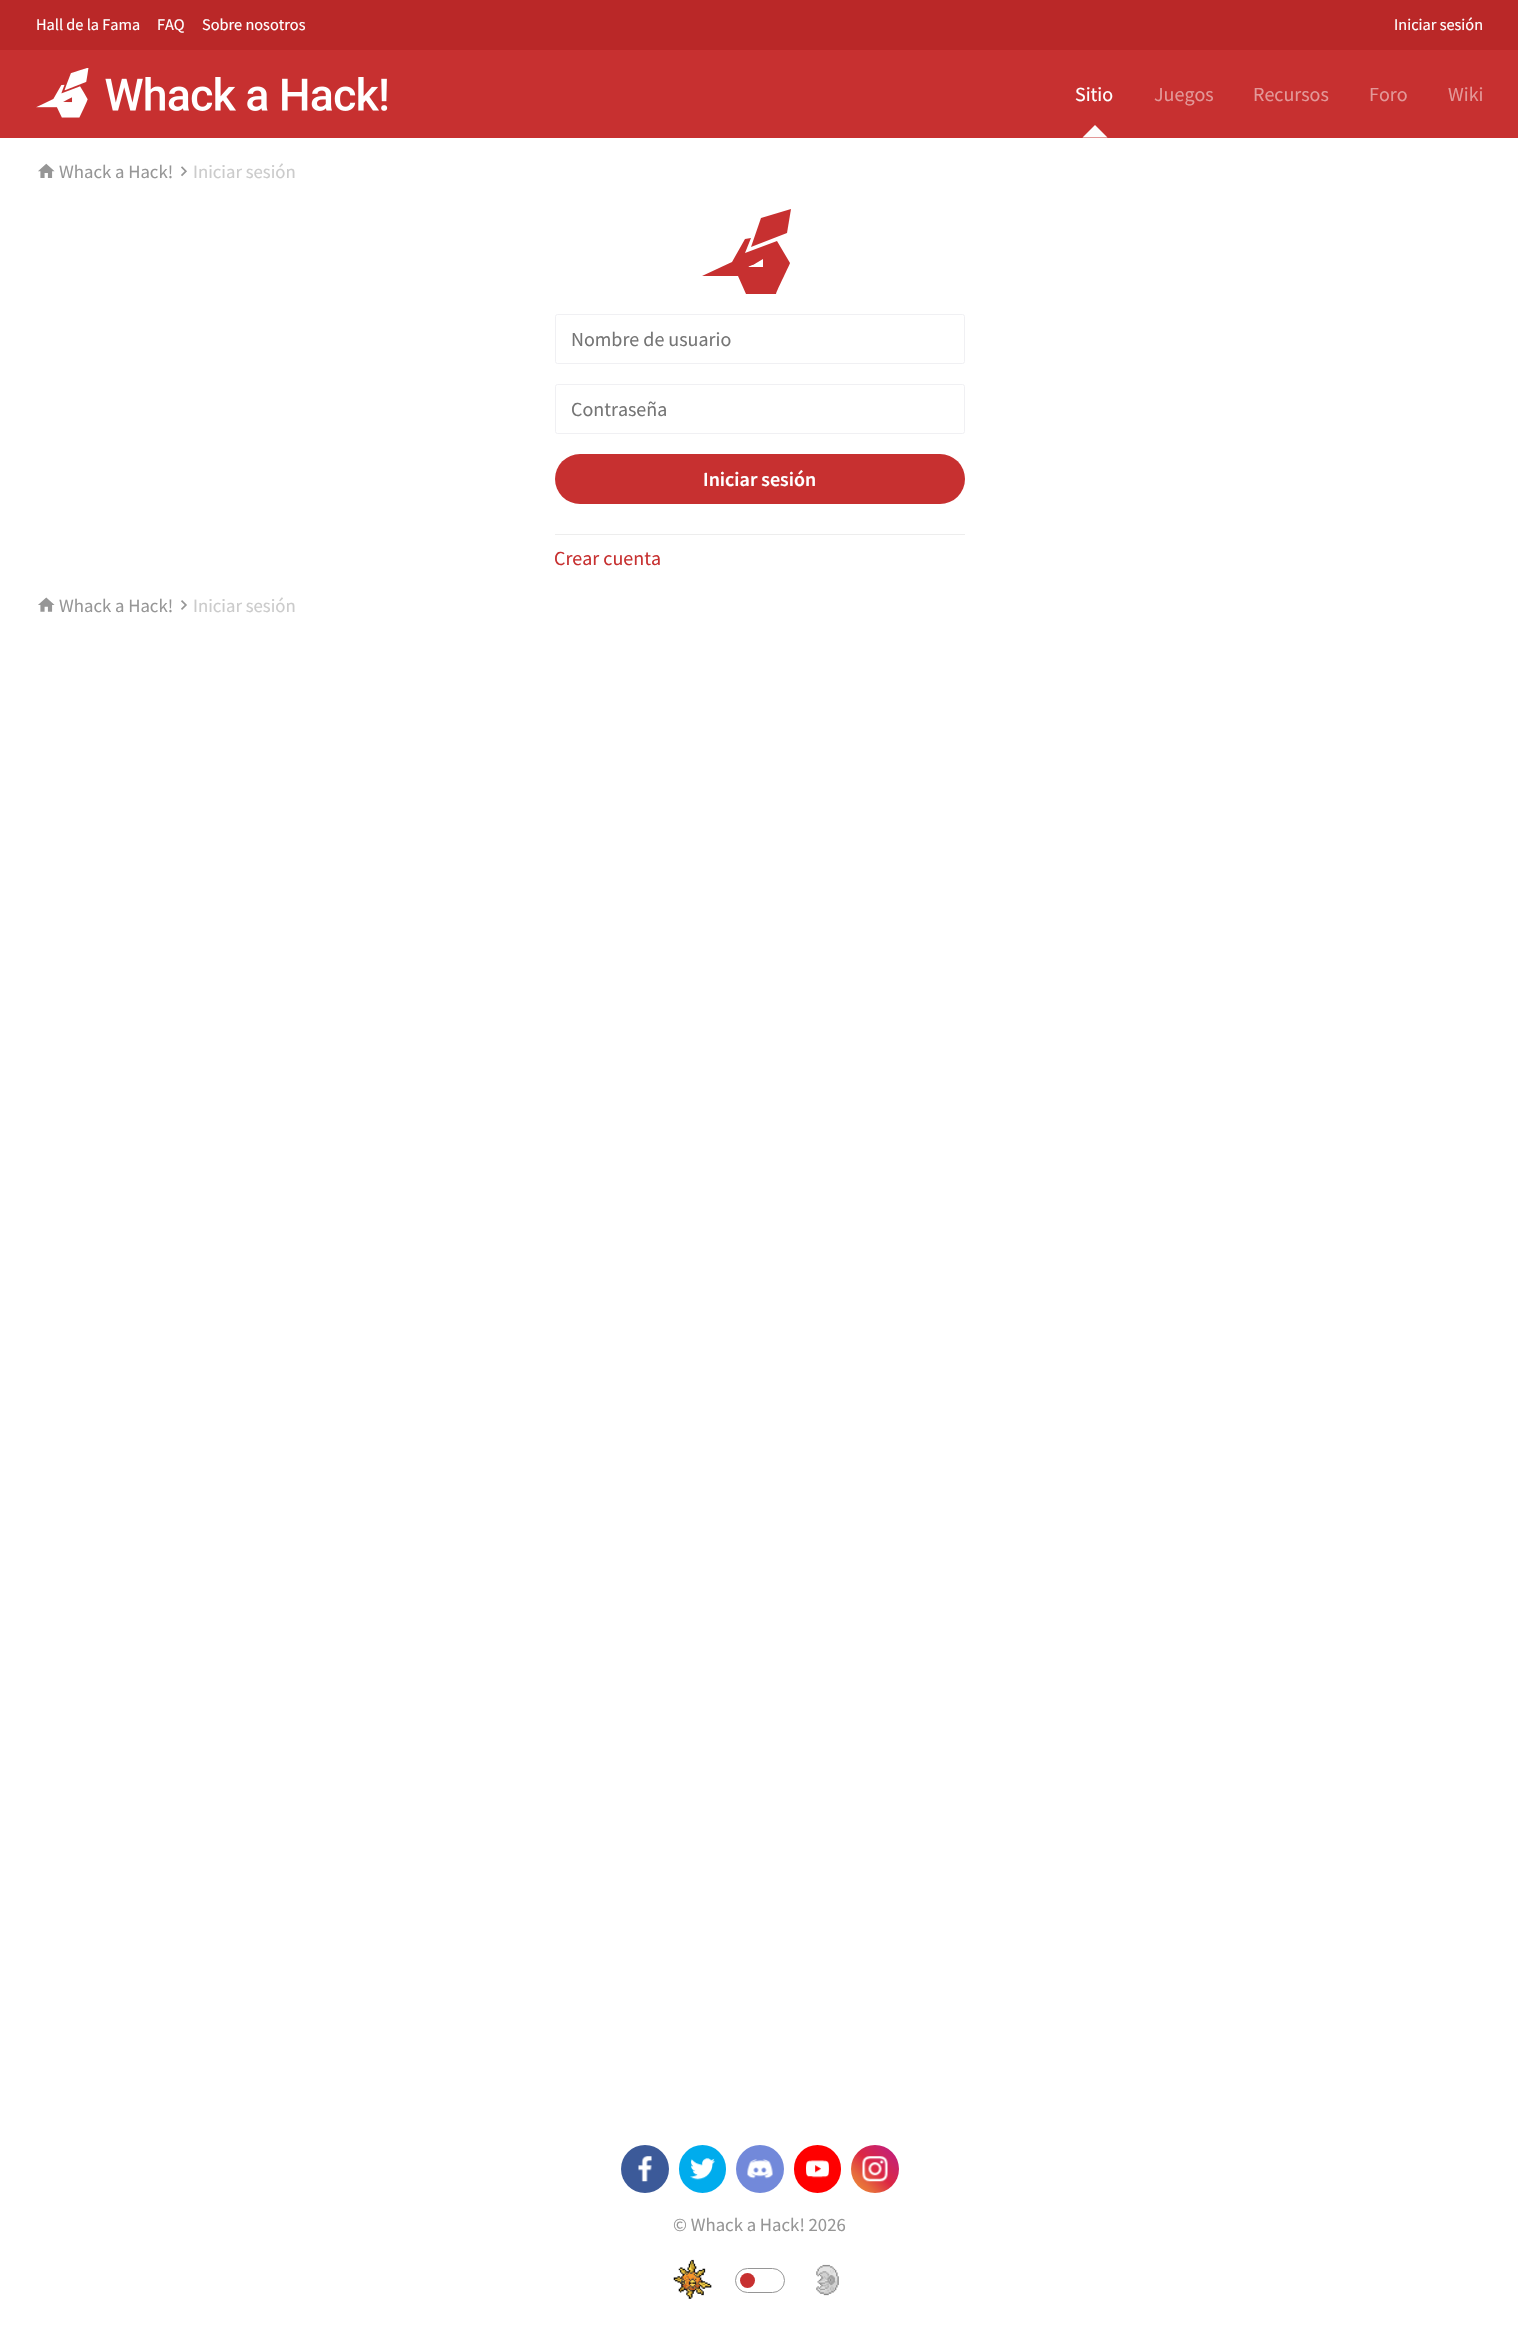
static SkFont makeFont(const char* family, int weight, float size, bool italic = false) {
  SkFontStyle style(weight, SkFontStyle::kNormal_Width,
    italic ? SkFontStyle::kItalic_Slant : SkFontStyle::kUpright_Slant);
  SkFont result(fontMgr->matchFamilyStyle(family, style), size);
  result.setSubpixel(true);
  return result;
}

static void text(SkCanvas* c, const char* s, float x, float y, const SkFont& font, SkColor color) {
  SkPaint ink(SkColor4f::FromColor(color));
  ink.setAntiAlias(true);
  c->drawString(s, x, y, font, ink);
}

static void box(SkCanvas* c, float l, float t, float r, float b, SkColor color) {
  SkPaint ink(SkColor4f::FromColor(color));
  ink.setAntiAlias(true);
  c->drawRect(SkRect::MakeLTRB(l, t, r, b), ink);
}

static void roundBox(SkCanvas* c, float l, float t, float r, float b, float radius, SkColor color) {
  SkPaint ink(SkColor4f::FromColor(color));
  ink.setAntiAlias(true);
  c->drawRoundRect(SkRect::MakeLTRB(l, t, r, b), radius, radius, ink);
}

static void picture(SkCanvas* c, const char* path, float l, float t, float r, float b) {
  auto image = SkImages::DeferredFromEncodedData(SkData::MakeFromFileName(path));
  c->drawImageRect(image, SkRect::MakeLTRB(l, t, r, b), SkSamplingOptions());
}

void draw(SkCanvas* c) {
  SkPaint paint;
  paint.setAntiAlias(true);
  c->clear(0xffffffff);
  box(c, 0, 0, 1518, 50, 0xffba2828);
  SkFont face1 = makeFont("Source Sans Pro", 400, 16.25f);
  text(c, "Hall de la Fama", 36, 30, face1, 0xffffffff);
  text(c, "FAQ", 157, 30, face1, 0xffffffff);
  text(c, "Sobre nosotros", 202, 30, face1, 0xffffffff);
  text(c, "Iniciar sesión", 1394, 30, face1, 0xffffffff);
  box(c, 0, 50, 1518, 138, 0xffc73030);
  picture(c, "img_01.png", 36, 68, 388, 118);
  SkFont face2 = makeFont("Source Sans Pro", 400, 20);
  text(c, "Sitio", 1075, 101, face2, 0xffffffff);
  paint.setColor(0xfffdfdfd);
  c->drawPath(SkPathBuilder().moveTo(1107.5f, 137.5f).lineTo(1082.5f, 137.5f).lineTo(1095, 125).close().detach(), paint);
  text(c, "Juegos", 1154, 101, face2, 0xffe39898);
  text(c, "Recursos", 1253, 101, face2, 0xffe39898);
  text(c, "Foro", 1369, 101, face2, 0xffe39898);
  text(c, "Wiki", 1448, 101, face2, 0xffe39898);
  picture(c, "img_02.png", 38, 163, 55, 178);
  SkFont face3 = makeFont("Source Sans Pro", 400, 18.75f);
  text(c, "Whack a Hack!", 59, 178, face3, 0xff969696);
  picture(c, "img_03.png", 181, 166, 187, 177);
  text(c, "Iniciar sesión", 193, 178, face3, 0xffcbcbcb);
  paint.setColor(0xffc73030);
  c->drawPath(SkPathBuilder().moveTo(742, 285).lineTo(738, 276).lineTo(702, 276).lineTo(732, 262).lineTo(745, 239).lineTo(751, 238).lineTo(745, 253).lineTo(777, 241).lineTo(790, 263).cubicTo(790, 264, 777, 290, 776, 294).lineTo(746, 294).close().moveTo(763, 263).lineTo(763, 259).lineTo(753, 265).cubicTo(752, 265, 747, 267, 749, 267).lineTo(763, 267).close().detach(), paint);
  c->drawPath(SkPathBuilder().moveTo(751, 247).lineTo(761, 218).lineTo(791, 209).lineTo(787, 233).close().detach(), paint);
  paint.setStyle(SkPaint::kStroke_Style);
  paint.setStrokeWidth(1);
  paint.setColor(0xfff0f0f3);
  c->drawRoundRect(SkRect::MakeLTRB(555.5f, 314.5f, 964.5f, 363.5f), 2, 2, paint);
  text(c, "Nombre de usuario", 571, 346, face2, 0xff757575);
  c->drawRoundRect(SkRect::MakeLTRB(555.5f, 384.5f, 964.5f, 433.5f), 2, 2, paint);
  text(c, "Contraseña", 571, 416, face2, 0xff757575);
  roundBox(c, 555, 454, 965, 504, 25, 0xffc73030);
  SkFont face4 = makeFont("Source Sans Pro", 600, 20);
  text(c, "Iniciar sesión", 703, 486, face4, 0xffffffff);
  box(c, 555, 534, 965, 535, 0xffededed);
  text(c, "Crear cuenta", 554, 565, face2, 0xffc73030);
  picture(c, "img_04.png", 38, 597, 55, 612);
  text(c, "Whack a Hack!", 59, 612, face3, 0xff969696);
  picture(c, "img_05.png", 181, 600, 187, 610);
  text(c, "Iniciar sesión", 193, 612, face3, 0xffcbcbcb);
  paint.setStyle(SkPaint::kFill_Style);
  paint.setColor(0xff3c5a99);
  c->drawCircle(645, 2169, 24, paint);
  picture(c, "img_06.png", 638, 2156, 652, 2182);
  roundBox(c, 679, 2145, 726, 2193, 23.5f, 0xff00aced);
  picture(c, "img_07.png", 690, 2158, 715, 2180);
  paint.setColor(0xff7289da);
  c->drawCircle(760, 2169, 24, paint);
  picture(c, "img_08.png", 747, 2159, 773, 2179);
  roundBox(c, 794, 2145, 841, 2193, 23.5f, 0xffff0000);
  picture(c, "img_09.png", 806, 2160, 829, 2178);
  {
    const SkColor colors[] = {0xfff09433, 0xffe6683c, 0xffdc2743, 0xffcc2366, 0xffbc1888};
    const float stops[] = {0, 0.25f, 0.5f, 0.75f, 1};
    const SkPoint ends[] = {{851, 2193}, {899, 2145}};
    paint.setShader(SkGradientShader::MakeLinear(ends, colors, stops, 5, SkTileMode::kClamp));
    paint.setAlpha(255);
  }
  c->drawCircle(875, 2169, 24, paint);
  picture(c, "img_10.png", 862, 2156, 888, 2182);
  text(c, "© Whack a Hack! 2026", 673, 2231, face3, 0xff969696);
  picture(c, "img_11.png", 673, 2259, 712, 2299);
  paint.setStyle(SkPaint::kStroke_Style);
  paint.setShader(nullptr);
  paint.setColor(0xff969696);
  c->drawRoundRect(SkRect::MakeLTRB(735.5f, 2268.5f, 784.5f, 2292.5f), 12, 12, paint);
  paint.setStyle(SkPaint::kFill_Style);
  paint.setColor(0xffc73030);
  c->drawCircle(747.5f, 2280.5f, 7.5f, paint);
  picture(c, "img_12.png", 816, 2264, 839, 2296);
}
